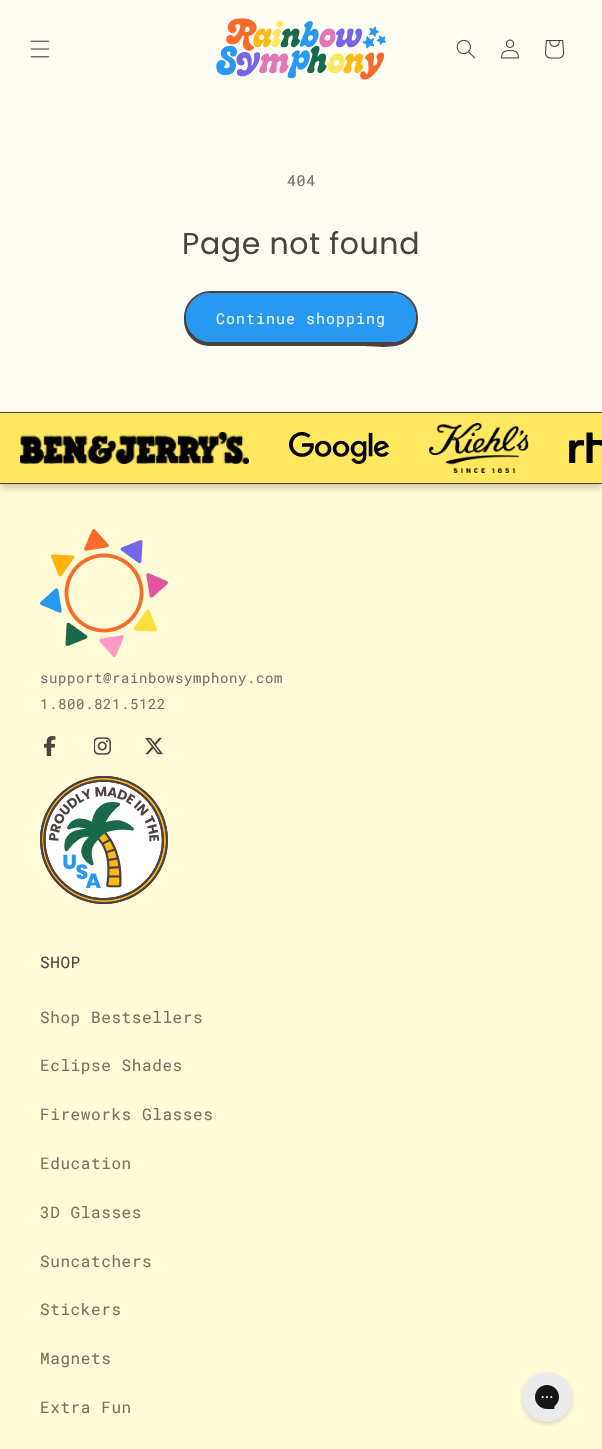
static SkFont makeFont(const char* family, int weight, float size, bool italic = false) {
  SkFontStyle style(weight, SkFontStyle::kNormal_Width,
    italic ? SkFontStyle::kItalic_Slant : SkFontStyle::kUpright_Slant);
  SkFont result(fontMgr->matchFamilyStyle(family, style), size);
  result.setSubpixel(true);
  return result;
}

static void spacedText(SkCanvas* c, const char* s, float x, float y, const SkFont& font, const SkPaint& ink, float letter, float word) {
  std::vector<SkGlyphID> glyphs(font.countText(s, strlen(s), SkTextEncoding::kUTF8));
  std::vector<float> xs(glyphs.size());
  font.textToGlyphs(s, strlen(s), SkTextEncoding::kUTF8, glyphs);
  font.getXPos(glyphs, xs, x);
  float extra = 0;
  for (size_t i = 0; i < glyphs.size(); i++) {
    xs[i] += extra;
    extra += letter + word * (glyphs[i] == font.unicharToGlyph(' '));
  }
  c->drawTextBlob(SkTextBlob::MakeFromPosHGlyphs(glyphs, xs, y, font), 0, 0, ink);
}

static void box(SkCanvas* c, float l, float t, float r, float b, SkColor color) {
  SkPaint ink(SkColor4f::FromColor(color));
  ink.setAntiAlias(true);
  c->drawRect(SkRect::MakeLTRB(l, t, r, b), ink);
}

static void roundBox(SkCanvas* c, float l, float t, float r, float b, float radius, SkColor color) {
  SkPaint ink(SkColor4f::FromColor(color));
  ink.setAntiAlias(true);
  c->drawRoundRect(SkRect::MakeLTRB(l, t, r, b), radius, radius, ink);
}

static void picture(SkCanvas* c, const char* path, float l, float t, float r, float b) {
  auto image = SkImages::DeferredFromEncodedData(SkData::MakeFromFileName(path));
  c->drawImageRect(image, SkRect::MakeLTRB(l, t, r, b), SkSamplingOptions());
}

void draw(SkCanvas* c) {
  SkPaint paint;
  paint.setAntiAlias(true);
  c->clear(0xfffffcf3);
  picture(c, "img_01.png", 30, 40, 50, 58);
  picture(c, "img_02.png", 216, 18, 386, 80);
  picture(c, "img_03.png", 456, 39, 475, 59);
  picture(c, "img_04.png", 501, 39, 519, 59);
  picture(c, "img_05.png", 545, 40, 565, 59);
  SkFont face1 = makeFont("Roboto Mono", 400, 15);
  paint.setColor(0xff79716e);
  spacedText(c, "404", 287, 186, face1, paint, 0.6f, 0);
  SkFont face2 = makeFont("Poppins", 400, 30);
  paint.setColor(0xff4c4242);
  spacedText(c, "Page not found", 182, 254, face2, paint, 0.6f, 0);
  c->drawPath(SkPathBuilder().moveTo(210, 293).cubicTo(176, 293, 175, 345, 210, 346).lineTo(361, 346).cubicTo(369, 346, 391, 349, 402, 344).cubicTo(428, 333, 420, 293, 392, 293).cubicTo(423, 293, 424, 342, 392, 342).lineTo(241, 342).cubicTo(234, 342, 212, 345, 201, 340).cubicTo(177, 330, 184, 293, 210, 293).close().detach(), paint);
  paint.setStyle(SkPaint::kStroke_Style);
  paint.setStrokeWidth(2);
  c->drawRoundRect(SkRect::MakeLTRB(185, 292, 417, 343), 25.5f, 25.5f, paint);
  roundBox(c, 186, 293, 416, 342, 24.5f, 0xff2899f3);
  paint.setColor(0xff2899f3);
  c->drawRoundRect(SkRect::MakeLTRB(187, 294, 415, 341), 23.5f, 23.5f, paint);
  paint.setStyle(SkPaint::kFill_Style);
  paint.setColor(0xfff2efdd);
  spacedText(c, "Continue shopping", 216, 324, face1, paint, 1, 0);
  box(c, 0, 484, 602, 1449, 0xfffffbd7);
  paint.setColor(0x33000000);
  paint.setMaskFilter(SkMaskFilter::MakeBlur(kNormal_SkBlurStyle, 3));
  c->drawRect(SkRect::MakeLTRB(0, 416, 602, 488), paint);
  paint.setMaskFilter(nullptr);
  box(c, 0, 413, 602, 483, 0xffffe85f);
  box(c, 0, 412, 602, 413, 0xff4c4242);
  box(c, 0, 483, 602, 484, 0xff4c4242);
  picture(c, "img_06.png", 20, 432, 249, 464);
  picture(c, "img_07.png", 289, 432, 389, 464);
  picture(c, "img_08.png", 429, 423, 529, 473);
  picture(c, "img_09.png", 569, 432, 602, 463);
  picture(c, "img_10.png", 40, 529, 168, 657);
  SkFont face3 = makeFont("Roboto Mono", 400, 14);
  paint.setColor(0xff797067);
  spacedText(c, "support@rainbowsymphony.com", 40, 683, face3, paint, 0.6f, 0);
  spacedText(c, "1.800.821.5122", 40, 709, face3, paint, 0.6f, 0);
  picture(c, "img_11.png", 44, 736, 56, 756);
  picture(c, "img_12.png", 94, 737, 111, 755);
  picture(c, "img_13.png", 145, 737, 163, 755);
  picture(c, "img_14.png", 40, 776, 168, 904);
  SkFont face4 = makeFont("Roboto Mono", 400, 16);
  paint.setColor(0xff4c4242);
  spacedText(c, "SHOP", 40, 968, face4, paint, 0.6f, 0);
  paint.setColor(0xff797067);
  spacedText(c, "Shop Bestsellers", 40, 1023, face4, paint, 0.6f, 0);
  spacedText(c, "Eclipse Shades", 40, 1071, face4, paint, 0.6f, 0);
  spacedText(c, "Fireworks Glasses", 40, 1120, face4, paint, 0.6f, 0);
  spacedText(c, "Education", 40, 1169, face4, paint, 0.6f, 0);
  spacedText(c, "3D Glasses", 40, 1218, face4, paint, 0.6f, 0);
  spacedText(c, "Suncatchers", 40, 1267, face4, paint, 0.6f, 0);
  spacedText(c, "Stickers", 40, 1315, face4, paint, 0.6f, 0);
  spacedText(c, "Magnets", 40, 1364, face4, paint, 0.6f, 0);
  spacedText(c, "Extra Fun", 40, 1413, face4, paint, 0.6f, 0);
  picture(c, "img_15.png", 520, 1372, 574, 1426);
}
